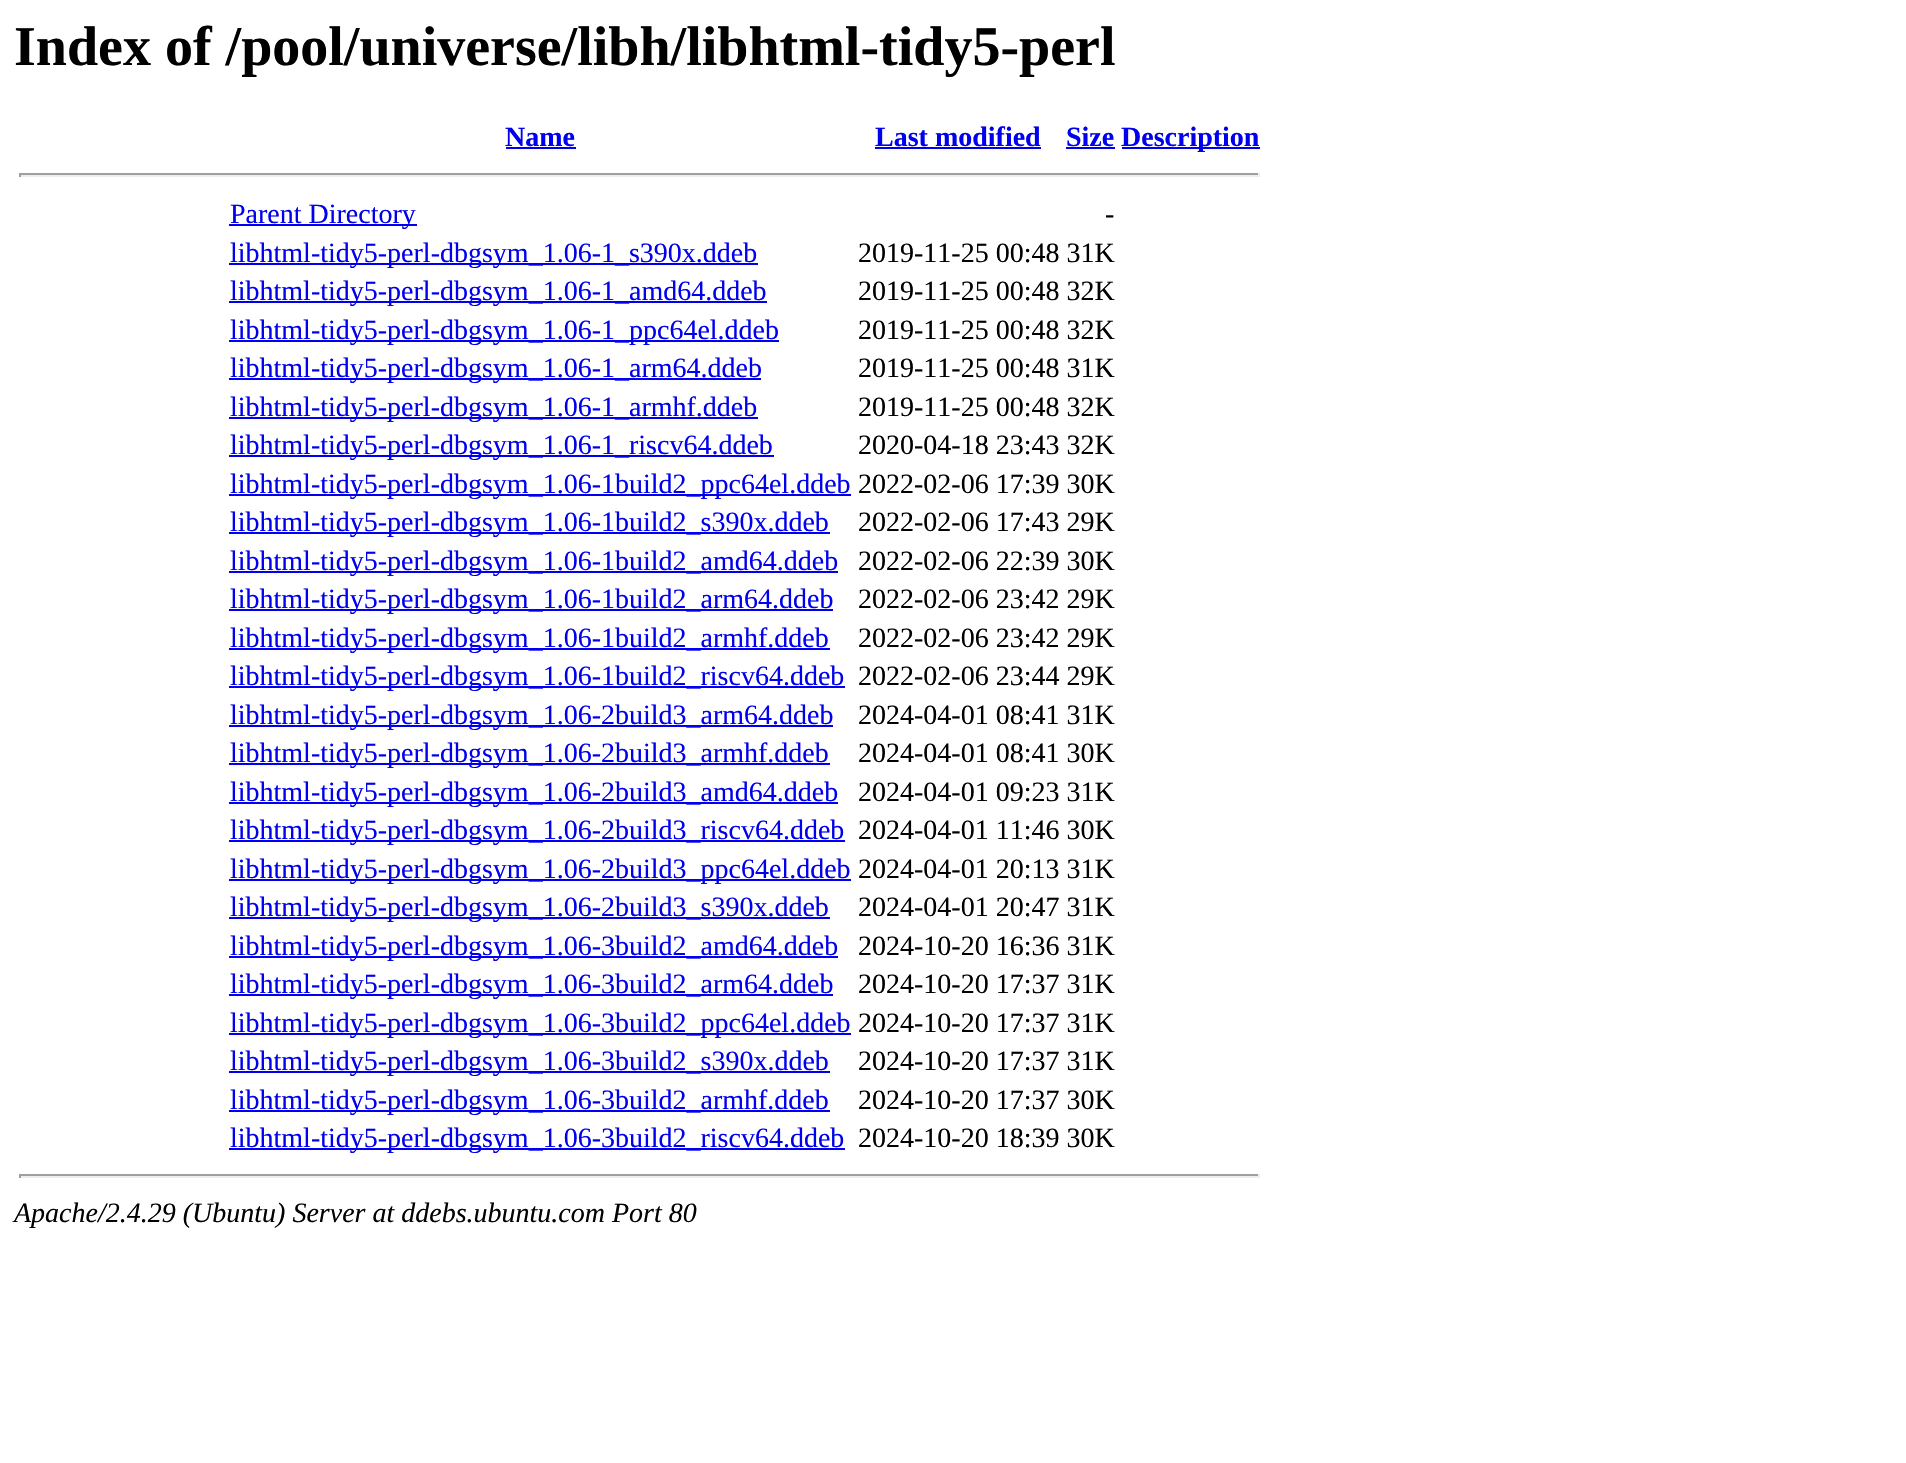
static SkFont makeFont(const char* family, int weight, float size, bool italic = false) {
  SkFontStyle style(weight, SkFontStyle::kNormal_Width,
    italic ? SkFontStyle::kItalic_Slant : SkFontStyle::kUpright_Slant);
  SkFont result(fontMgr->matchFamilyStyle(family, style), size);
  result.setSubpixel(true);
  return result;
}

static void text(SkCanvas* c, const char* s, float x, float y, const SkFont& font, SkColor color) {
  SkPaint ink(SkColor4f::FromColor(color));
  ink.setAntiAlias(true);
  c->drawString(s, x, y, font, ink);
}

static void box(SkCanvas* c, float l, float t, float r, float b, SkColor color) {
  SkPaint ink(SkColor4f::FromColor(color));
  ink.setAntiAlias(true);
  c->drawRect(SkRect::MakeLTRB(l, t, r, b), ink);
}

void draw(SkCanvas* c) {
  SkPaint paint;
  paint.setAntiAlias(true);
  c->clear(0xffffffff);
  SkFont face1 = makeFont("Liberation Serif", 700, 56);
  text(c, "Index of /pool/universe/libh/libhtml-tidy5-perl", 14, 65, face1, 0xff000000);
  SkFont face2 = makeFont("Liberation Serif", 700, 28);
  text(c, "Name", 505, 146, face2, 0xff0000ee);
  box(c, 506, 147, 576, 149, 0xff0000ee);
  text(c, "Last modified", 875, 146, face2, 0xff0000ee);
  box(c, 875, 147, 1041, 149, 0xff0000ee);
  text(c, "Size", 1066, 146, face2, 0xff0000ee);
  box(c, 1066, 147, 1115, 149, 0xff0000ee);
  box(c, 1122, 147, 1260, 149, 0xff0000ee);
  text(c, "Description", 1121, 146, face2, 0xff0000ee);
  box(c, 19, 173, 1260, 175, 0xff9f9f9f);
  box(c, 1258, 173, 1260, 177, 0xffeeeeee);
  box(c, 19, 175, 1260, 177, 0xffeeeeee);
  box(c, 19, 173, 21, 177, 0xff9f9f9f);
  box(c, 229, 224, 417, 226, 0xff0000ee);
  SkFont face3 = makeFont("Liberation Serif", 400, 28);
  text(c, "Parent Directory", 230, 223, face3, 0xff0000ee);
  text(c, "-", 1105, 223, face3, 0xff000000);
  box(c, 229, 263, 758, 265, 0xff0000ee);
  text(c, "libhtml-tidy5-perl-dbgsym_1.06-1_s390x.ddeb", 230, 262, face3, 0xff0000ee);
  text(c, "2019-11-25 00:48 31K", 858, 262, face3, 0xff000000);
  box(c, 229, 301, 767, 303, 0xff0000ee);
  text(c, "libhtml-tidy5-perl-dbgsym_1.06-1_amd64.ddeb", 230, 300, face3, 0xff0000ee);
  text(c, "2019-11-25 00:48 32K", 858, 300, face3, 0xff000000);
  box(c, 229, 340, 779, 342, 0xff0000ee);
  text(c, "libhtml-tidy5-perl-dbgsym_1.06-1_ppc64el.ddeb", 230, 339, face3, 0xff0000ee);
  text(c, "2019-11-25 00:48 32K", 858, 339, face3, 0xff000000);
  box(c, 229, 378, 761, 380, 0xff0000ee);
  text(c, "libhtml-tidy5-perl-dbgsym_1.06-1_arm64.ddeb", 230, 377, face3, 0xff0000ee);
  text(c, "2019-11-25 00:48 31K", 858, 377, face3, 0xff000000);
  box(c, 229, 417, 758, 419, 0xff0000ee);
  text(c, "libhtml-tidy5-perl-dbgsym_1.06-1_armhf.ddeb", 230, 416, face3, 0xff0000ee);
  text(c, "2019-11-25 00:48 32K", 858, 416, face3, 0xff000000);
  box(c, 229, 455, 774, 457, 0xff0000ee);
  text(c, "libhtml-tidy5-perl-dbgsym_1.06-1_riscv64.ddeb", 230, 454, face3, 0xff0000ee);
  text(c, "2020-04-18 23:43 32K", 858, 454, face3, 0xff000000);
  box(c, 229, 494, 851, 496, 0xff0000ee);
  text(c, "libhtml-tidy5-perl-dbgsym_1.06-1build2_ppc64el.ddeb", 230, 493, face3, 0xff0000ee);
  text(c, "2022-02-06 17:39 30K", 858, 493, face3, 0xff000000);
  box(c, 229, 532, 830, 534, 0xff0000ee);
  text(c, "libhtml-tidy5-perl-dbgsym_1.06-1build2_s390x.ddeb", 230, 531, face3, 0xff0000ee);
  text(c, "2022-02-06 17:43 29K", 858, 531, face3, 0xff000000);
  box(c, 229, 571, 838, 573, 0xff0000ee);
  text(c, "libhtml-tidy5-perl-dbgsym_1.06-1build2_amd64.ddeb", 230, 570, face3, 0xff0000ee);
  text(c, "2022-02-06 22:39 30K", 858, 570, face3, 0xff000000);
  box(c, 229, 609, 833, 611, 0xff0000ee);
  text(c, "libhtml-tidy5-perl-dbgsym_1.06-1build2_arm64.ddeb", 230, 608, face3, 0xff0000ee);
  text(c, "2022-02-06 23:42 29K", 858, 608, face3, 0xff000000);
  box(c, 229, 648, 830, 650, 0xff0000ee);
  text(c, "libhtml-tidy5-perl-dbgsym_1.06-1build2_armhf.ddeb", 230, 647, face3, 0xff0000ee);
  text(c, "2022-02-06 23:42 29K", 858, 647, face3, 0xff000000);
  box(c, 229, 686, 845, 688, 0xff0000ee);
  text(c, "libhtml-tidy5-perl-dbgsym_1.06-1build2_riscv64.ddeb", 230, 685, face3, 0xff0000ee);
  text(c, "2022-02-06 23:44 29K", 858, 685, face3, 0xff000000);
  box(c, 229, 725, 833, 727, 0xff0000ee);
  text(c, "libhtml-tidy5-perl-dbgsym_1.06-2build3_arm64.ddeb", 230, 724, face3, 0xff0000ee);
  text(c, "2024-04-01 08:41 31K", 858, 724, face3, 0xff000000);
  box(c, 229, 763, 830, 765, 0xff0000ee);
  text(c, "libhtml-tidy5-perl-dbgsym_1.06-2build3_armhf.ddeb", 230, 762, face3, 0xff0000ee);
  text(c, "2024-04-01 08:41 30K", 858, 762, face3, 0xff000000);
  box(c, 229, 802, 838, 804, 0xff0000ee);
  text(c, "libhtml-tidy5-perl-dbgsym_1.06-2build3_amd64.ddeb", 230, 801, face3, 0xff0000ee);
  text(c, "2024-04-01 09:23 31K", 858, 801, face3, 0xff000000);
  box(c, 229, 840, 845, 842, 0xff0000ee);
  text(c, "libhtml-tidy5-perl-dbgsym_1.06-2build3_riscv64.ddeb", 230, 839, face3, 0xff0000ee);
  text(c, "2024-04-01 11:46 30K", 858, 839, face3, 0xff000000);
  box(c, 229, 879, 851, 881, 0xff0000ee);
  text(c, "libhtml-tidy5-perl-dbgsym_1.06-2build3_ppc64el.ddeb", 230, 878, face3, 0xff0000ee);
  text(c, "2024-04-01 20:13 31K", 858, 878, face3, 0xff000000);
  box(c, 229, 917, 830, 919, 0xff0000ee);
  text(c, "libhtml-tidy5-perl-dbgsym_1.06-2build3_s390x.ddeb", 230, 916, face3, 0xff0000ee);
  text(c, "2024-04-01 20:47 31K", 858, 916, face3, 0xff000000);
  box(c, 229, 956, 838, 958, 0xff0000ee);
  text(c, "libhtml-tidy5-perl-dbgsym_1.06-3build2_amd64.ddeb", 230, 955, face3, 0xff0000ee);
  text(c, "2024-10-20 16:36 31K", 858, 955, face3, 0xff000000);
  box(c, 229, 994, 833, 996, 0xff0000ee);
  text(c, "libhtml-tidy5-perl-dbgsym_1.06-3build2_arm64.ddeb", 230, 993, face3, 0xff0000ee);
  text(c, "2024-10-20 17:37 31K", 858, 993, face3, 0xff000000);
  box(c, 229, 1033, 851, 1035, 0xff0000ee);
  text(c, "libhtml-tidy5-perl-dbgsym_1.06-3build2_ppc64el.ddeb", 230, 1032, face3, 0xff0000ee);
  text(c, "2024-10-20 17:37 31K", 858, 1032, face3, 0xff000000);
  box(c, 229, 1071, 830, 1073, 0xff0000ee);
  text(c, "libhtml-tidy5-perl-dbgsym_1.06-3build2_s390x.ddeb", 230, 1070, face3, 0xff0000ee);
  text(c, "2024-10-20 17:37 31K", 858, 1070, face3, 0xff000000);
  box(c, 229, 1110, 830, 1112, 0xff0000ee);
  text(c, "libhtml-tidy5-perl-dbgsym_1.06-3build2_armhf.ddeb", 230, 1109, face3, 0xff0000ee);
  text(c, "2024-10-20 17:37 30K", 858, 1109, face3, 0xff000000);
  box(c, 229, 1148, 845, 1150, 0xff0000ee);
  text(c, "libhtml-tidy5-perl-dbgsym_1.06-3build2_riscv64.ddeb", 230, 1147, face3, 0xff0000ee);
  text(c, "2024-10-20 18:39 30K", 858, 1147, face3, 0xff000000);
  box(c, 19, 1174, 1260, 1176, 0xff9f9f9f);
  box(c, 1258, 1174, 1260, 1178, 0xffeeeeee);
  box(c, 19, 1176, 1260, 1178, 0xffeeeeee);
  box(c, 19, 1174, 21, 1178, 0xff9f9f9f);
  SkFont face4 = makeFont("Liberation Serif", 400, 28, true);
  text(c, "Apache/2.4.29 (Ubuntu) Server at ddebs.ubuntu.com Port 80", 14, 1222, face4, 0xff000000);
}
